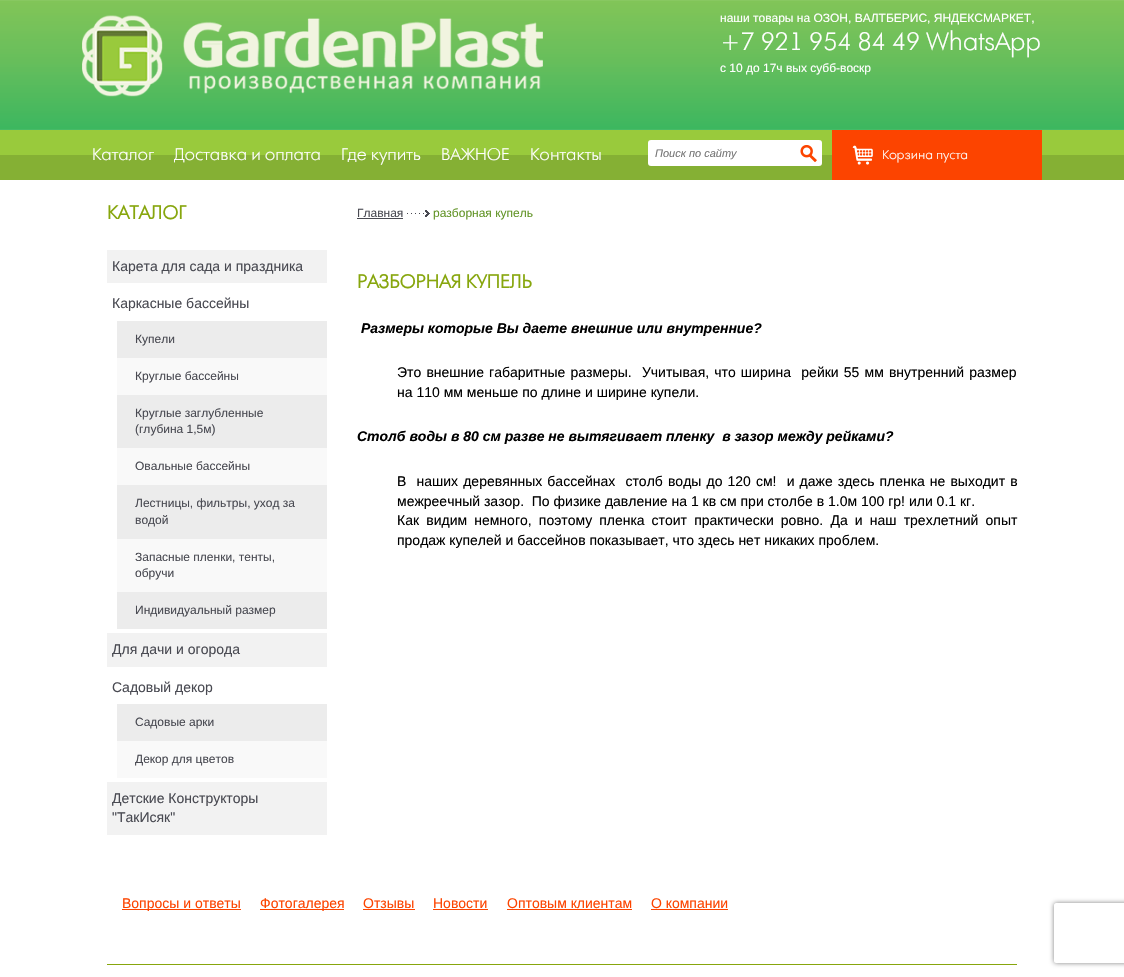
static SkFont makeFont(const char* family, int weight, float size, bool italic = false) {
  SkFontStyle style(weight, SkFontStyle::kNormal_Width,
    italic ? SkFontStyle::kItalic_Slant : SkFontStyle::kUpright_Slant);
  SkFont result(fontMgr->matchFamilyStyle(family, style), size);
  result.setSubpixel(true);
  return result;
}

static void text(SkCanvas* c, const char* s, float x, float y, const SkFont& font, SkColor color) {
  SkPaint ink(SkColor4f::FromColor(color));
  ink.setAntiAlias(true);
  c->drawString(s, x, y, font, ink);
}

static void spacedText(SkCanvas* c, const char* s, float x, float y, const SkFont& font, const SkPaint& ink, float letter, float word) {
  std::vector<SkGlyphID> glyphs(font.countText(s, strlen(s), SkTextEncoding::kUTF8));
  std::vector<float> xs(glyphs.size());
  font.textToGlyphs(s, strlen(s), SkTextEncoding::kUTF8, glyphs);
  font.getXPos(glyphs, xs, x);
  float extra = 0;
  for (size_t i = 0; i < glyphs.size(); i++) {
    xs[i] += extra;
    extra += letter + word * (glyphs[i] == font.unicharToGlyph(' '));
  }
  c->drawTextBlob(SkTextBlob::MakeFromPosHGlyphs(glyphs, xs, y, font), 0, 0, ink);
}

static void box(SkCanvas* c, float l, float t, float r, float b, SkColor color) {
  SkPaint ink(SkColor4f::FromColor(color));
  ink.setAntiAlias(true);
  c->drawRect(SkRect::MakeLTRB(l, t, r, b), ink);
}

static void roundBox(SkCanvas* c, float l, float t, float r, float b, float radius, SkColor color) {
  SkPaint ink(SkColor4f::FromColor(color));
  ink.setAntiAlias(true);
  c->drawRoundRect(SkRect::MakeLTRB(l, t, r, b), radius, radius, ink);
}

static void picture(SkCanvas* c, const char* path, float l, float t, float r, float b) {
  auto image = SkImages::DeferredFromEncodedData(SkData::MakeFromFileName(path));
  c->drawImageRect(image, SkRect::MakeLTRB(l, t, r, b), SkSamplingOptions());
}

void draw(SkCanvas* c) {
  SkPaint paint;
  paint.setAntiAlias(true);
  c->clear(0xffffffff);
  picture(c, "img_01.png", 0, 0, 1124, 130);
  picture(c, "img_02.png", 82, 15, 543, 97);
  SkFont face1 = makeFont("Liberation Sans", 400, 12);
  text(c, "наши товары на ОЗОН, ВАЛТБЕРИС, ЯНДЕКСМАРКЕТ,", 720, 22, face1, 0xffffffff);
  SkFont face2 = makeFont("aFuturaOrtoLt", 300, 24);
  text(c, "+7 921 954 84 49 WhatsApp", 720, 50, face2, 0xffffffff);
  text(c, "с 10 до 17ч вых субб-воскр", 720, 72, face1, 0xffffffff);
  picture(c, "img_03.png", 0, 130, 1124, 180);
  SkFont face3 = makeFont("aFuturaOrtoLt", 300, 16);
  text(c, "Каталог", 92, 160, face3, 0xffffffff);
  text(c, "Доставка и оплата", 174, 160, face3, 0xffffffff);
  text(c, "Где купить", 341, 160, face3, 0xffffffff);
  text(c, "ВАЖНОЕ", 441, 160, face3, 0xffffffff);
  text(c, "Контакты", 530, 160, face3, 0xffffffff);
  box(c, 832, 130, 1042, 180, 0xfffc4400);
  picture(c, "img_04.png", 852, 145, 873, 165);
  SkFont face4 = makeFont("aFuturaOrtoLt", 300, 12);
  text(c, "Корзина пуста", 882, 159, face4, 0xffffffff);
  roundBox(c, 648, 140, 822, 166, 3, 0xffffffff);
  SkFont face5 = makeFont("Liberation Sans", 400, 11, true);
  text(c, "Поиск по сайту", 655, 157, face5, 0xff757575);
  picture(c, "img_05.png", 800, 145, 817, 162);
  SkFont face6 = makeFont("aFuturaOrtoLt", 700, 18);
  text(c, "КАТАЛОГ", 107, 219, face6, 0xff87a60d);
  box(c, 107, 250, 327, 283, 0xfff2f2f2);
  SkFont face7 = makeFont("Liberation Sans", 400, 14);
  text(c, "Карета для сада и праздника", 112, 271, face7, 0xff494a52);
  text(c, "Каркасные бассейны", 112, 308, face7, 0xff494a52);
  box(c, 117, 321, 327, 358, 0xffececec);
  text(c, "Купели", 135, 343, face1, 0xff494a52);
  box(c, 117, 358, 327, 395, 0xfff9f9f9);
  text(c, "Круглые бассейны", 135, 380, face1, 0xff494a52);
  box(c, 117, 395, 327, 448, 0xffececec);
  text(c, "Круглые заглубленные", 135, 417, face1, 0xff494a52);
  text(c, "(глубина 1,5м)", 135, 433, face1, 0xff494a52);
  box(c, 117, 448, 327, 485, 0xfff9f9f9);
  text(c, "Овальные бассейны", 135, 470, face1, 0xff494a52);
  box(c, 117, 485, 327, 539, 0xffececec);
  text(c, "Лестницы, фильтры, уход за", 135, 507, face1, 0xff494a52);
  text(c, "водой", 135, 524, face1, 0xff494a52);
  box(c, 117, 539, 327, 592, 0xfff9f9f9);
  text(c, "Запасные пленки, тенты,", 135, 561, face1, 0xff494a52);
  text(c, "обручи", 135, 577, face1, 0xff494a52);
  box(c, 117, 592, 327, 629, 0xffececec);
  text(c, "Индивидуальный размер", 135, 614, face1, 0xff494a52);
  box(c, 107, 633, 327, 667, 0xfff2f2f2);
  text(c, "Для дачи и огорода", 112, 654, face7, 0xff494a52);
  text(c, "Садовый декор", 112, 692, face7, 0xff494a52);
  box(c, 117, 704, 327, 741, 0xffececec);
  text(c, "Садовые арки", 135, 726, face1, 0xff494a52);
  box(c, 117, 741, 327, 778, 0xfff9f9f9);
  text(c, "Декор для цветов", 135, 763, face1, 0xff494a52);
  box(c, 107, 782, 327, 835, 0xfff2f2f2);
  text(c, "Детские Конструкторы", 112, 803, face7, 0xff494a52);
  text(c, "\"ТакИсяк\"", 112, 822, face7, 0xff494a52);
  text(c, "Главная", 357, 217, face1, 0xff494a52);
  box(c, 357, 218, 403, 219, 0xff494a52);
  picture(c, "img_06.png", 407, 210, 430, 217);
  text(c, "разборная купель", 433, 217, face1, 0xff639528);
  text(c, "РАЗБОРНАЯ КУПЕЛЬ", 357, 288, face6, 0xff87a60d);
  SkFont face8 = makeFont("Liberation Sans", 700, 14, true);
  text(c, "Размеры которые Вы даете внешние или внутренние?", 361, 333, face8, 0xff000000);
  paint.setColor(0xff000000);
  spacedText(c, "Это внешние габаритные размеры.  Учитывая, что ширина  рейки 55 мм внутренний размер", 397, 377, face7, paint, 0, 1.25f);
  text(c, "на 110 мм меньше по длине и ширине купели.", 397, 397, face7, 0xff000000);
  text(c, "Столб воды в 80 см разве не вытягивает пленку  в зазор между рейками?", 357, 441, face8, 0xff000000);
  spacedText(c, "В  наших деревянных бассейнах  столб воды до 120 см!  и даже здесь пленка не выходит в", 397, 486, face7, paint, 0, 1.2f);
  text(c, "межреечный зазор.  По физике давление на 1 кв см при столбе в 1.0м 100 гр! или 0.1 кг.", 397, 506, face7, 0xff000000);
  spacedText(c, "Как видим немного, поэтому пленка стоит практически ровно. Да и наш трехлетний опыт", 397, 525, face7, paint, 0, 3.25f);
  text(c, "продаж купелей и бассейнов показывает, что здесь нет никаких проблем.", 397, 545, face7, 0xff000000);
  box(c, 122, 909, 241, 910, 0xfffc4400);
  text(c, "Вопросы и ответы", 122, 908, face7, 0xfffc4400);
  box(c, 260, 909, 344, 910, 0xfffc4400);
  text(c, "Фотогалерея", 260, 908, face7, 0xfffc4400);
  text(c, "Отзывы", 363, 908, face7, 0xfffc4400);
  box(c, 363, 909, 415, 910, 0xfffc4400);
  text(c, "Новости", 433, 908, face7, 0xfffc4400);
  box(c, 433, 909, 488, 910, 0xfffc4400);
  text(c, "Оптовым клиентам", 507, 908, face7, 0xfffc4400);
  box(c, 507, 909, 632, 910, 0xfffc4400);
  text(c, "О компании", 651, 908, face7, 0xfffc4400);
  box(c, 651, 909, 728, 910, 0xfffc4400);
  box(c, 107, 964, 1017, 965, 0xff87a60d);
  c->save();
  c->clipPath(SkPathBuilder(SkPathFillType::kEvenOdd).moveTo(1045, 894).lineTo(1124, 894).lineTo(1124, 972).lineTo(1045, 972).close().moveTo(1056, 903).lineTo(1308, 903).cubicTo(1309, 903, 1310, 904, 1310, 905).lineTo(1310, 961).cubicTo(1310, 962, 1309, 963, 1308, 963).lineTo(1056, 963).cubicTo(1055, 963, 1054, 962, 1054, 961).lineTo(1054, 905).cubicTo(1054, 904, 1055, 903, 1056, 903).close().detach(), true);
  paint.setColor(0xff808080);
  paint.setMaskFilter(SkMaskFilter::MakeBlur(kNormal_SkBlurStyle, 2.5f));
  c->drawRoundRect(SkRect::MakeLTRB(1054, 903, 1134, 963), 2, 2, paint);
  paint.setMaskFilter(nullptr);
  c->restore();
}
